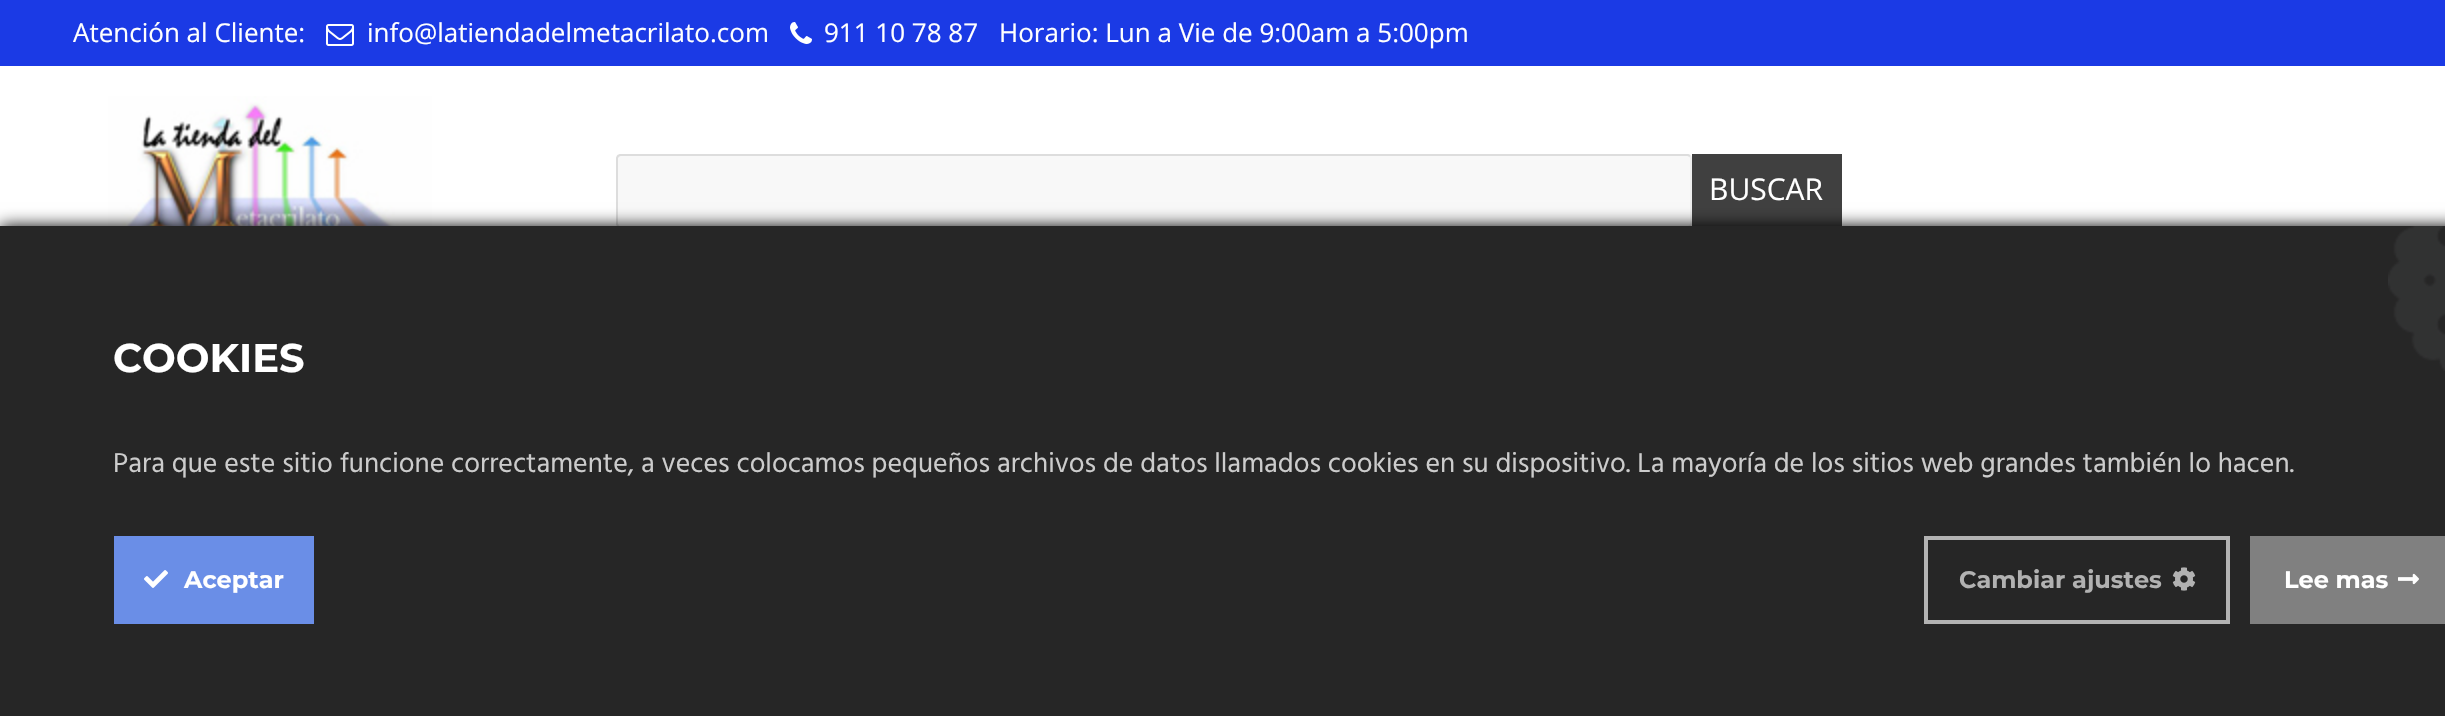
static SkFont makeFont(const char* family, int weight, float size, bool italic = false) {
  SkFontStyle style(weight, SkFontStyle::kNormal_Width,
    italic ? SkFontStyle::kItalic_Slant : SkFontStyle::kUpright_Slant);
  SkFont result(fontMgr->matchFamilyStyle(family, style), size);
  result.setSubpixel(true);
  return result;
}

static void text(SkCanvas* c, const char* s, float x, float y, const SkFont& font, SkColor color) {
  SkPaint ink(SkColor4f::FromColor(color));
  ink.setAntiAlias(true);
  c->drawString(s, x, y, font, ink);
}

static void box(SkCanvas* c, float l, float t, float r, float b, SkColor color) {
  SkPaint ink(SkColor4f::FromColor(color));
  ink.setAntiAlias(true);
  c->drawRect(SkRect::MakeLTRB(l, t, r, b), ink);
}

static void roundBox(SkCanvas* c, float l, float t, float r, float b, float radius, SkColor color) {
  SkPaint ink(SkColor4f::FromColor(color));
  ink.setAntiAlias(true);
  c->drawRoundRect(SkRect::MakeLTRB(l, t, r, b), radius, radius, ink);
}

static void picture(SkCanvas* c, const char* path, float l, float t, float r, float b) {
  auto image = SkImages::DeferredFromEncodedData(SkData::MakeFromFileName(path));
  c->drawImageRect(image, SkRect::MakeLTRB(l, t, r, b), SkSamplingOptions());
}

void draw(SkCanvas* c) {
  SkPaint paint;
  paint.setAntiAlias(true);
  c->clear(0xffffffff);
  box(c, 0, 0, 2445, 66, 0xff1b3ae5);
  SkFont face1 = makeFont("Open Sans", 400, 26);
  text(c, "Atención al Cliente:", 73, 42, face1, 0xffffffff);
  picture(c, "img_01.png", 326, 24, 354, 46);
  text(c, "info@latiendadelmetacrilato.com", 367, 42, face1, 0xffffffff);
  picture(c, "img_02.png", 790, 22, 812, 44);
  text(c, "911 10 78 87", 824, 42, face1, 0xffffffff);
  text(c, "Horario: Lun a Vie de 9:00am a 5:00pm", 999, 42, face1, 0xffffffff);
  picture(c, "img_03.png", 108, 96, 432, 226);
  roundBox(c, 616, 154, 1692, 228, 4, 0xfff8f8f8);
  paint.setStyle(SkPaint::kStroke_Style);
  paint.setStrokeWidth(2);
  paint.setColor(0xffeeeeee);
  c->drawPath(SkPathBuilder().moveTo(1690, 156).lineTo(1691, 158).lineTo(1691, 224).lineTo(1690, 226).lineTo(1688, 227).lineTo(620, 227).lineTo(618, 226).detach(), paint);
  paint.setColor(0xffdddddd);
  c->drawPath(SkPathBuilder().moveTo(618, 226).lineTo(617, 224).lineTo(617, 158).lineTo(618, 156).lineTo(620, 155).lineTo(1688, 155).lineTo(1690, 156).detach(), paint);
  box(c, 1692, 154, 1842, 226, 0xff404040);
  SkFont face2 = makeFont("Open Sans", 400, 30);
  text(c, "BUSCAR", 1709, 200, face2, 0xffffffff);
  paint.setStyle(SkPaint::kFill_Style);
  paint.setColor(0xff000000);
  paint.setMaskFilter(SkMaskFilter::MakeBlur(kNormal_SkBlurStyle, 8));
  c->drawRect(SkRect::MakeLTRB(0, 226, 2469, 716), paint);
  paint.setMaskFilter(nullptr);
  box(c, 0, 226, 2445, 716, 0xff262626);
  SkFont face3 = makeFont("Montserrat", 700, 40);
  text(c, "COOKIES", 113, 372, face3, 0xffffffff);
  picture(c, "img_04.png", 2388, 226, 2445, 371);
  SkFont face4 = makeFont("Hind", 400, 28);
  text(c, "Para que este sitio funcione correctamente, a veces colocamos pequeños archivos de datos llamados cookies en su dispositivo. La mayoría de los sitios web grandes también lo hacen.", 113, 472, face4, 0xffcccccc);
  box(c, 114, 536, 314, 624, 0xff6a8ee7);
  picture(c, "img_05.png", 144, 570, 168, 588);
  SkFont face5 = makeFont("Montserrat", 700, 24);
  text(c, "Aceptar", 184, 588, face5, 0xffffffff);
  paint.setStyle(SkPaint::kStroke_Style);
  paint.setStrokeWidth(4);
  paint.setColor(0xffb3b3b3);
  c->drawRect(SkRect::MakeLTRB(1926, 538, 2228, 622), paint);
  text(c, "Cambiar ajustes", 1959, 588, face5, 0xffb2b2b2);
  picture(c, "img_06.png", 2172, 567, 2196, 591);
  box(c, 2250, 536, 2445, 624, 0xff808080);
  text(c, "Lee mas", 2284, 588, face5, 0xffffffff);
  picture(c, "img_07.png", 2398, 573, 2419, 585);
}
